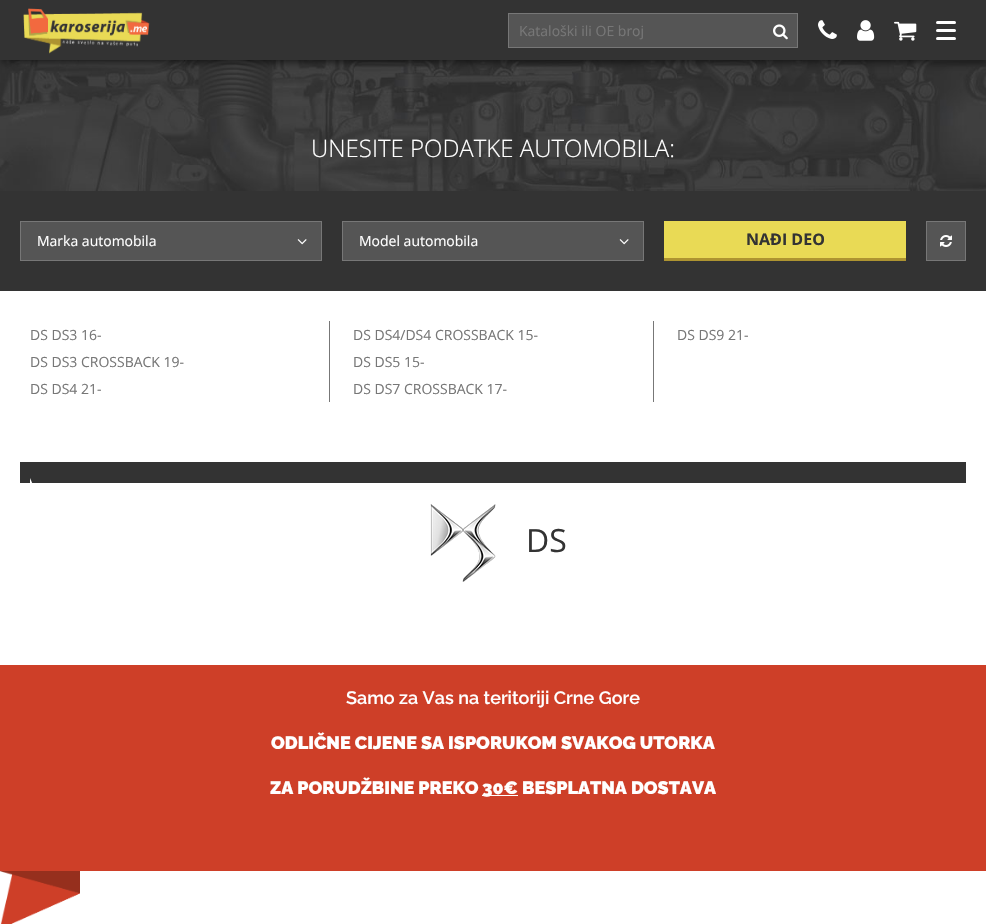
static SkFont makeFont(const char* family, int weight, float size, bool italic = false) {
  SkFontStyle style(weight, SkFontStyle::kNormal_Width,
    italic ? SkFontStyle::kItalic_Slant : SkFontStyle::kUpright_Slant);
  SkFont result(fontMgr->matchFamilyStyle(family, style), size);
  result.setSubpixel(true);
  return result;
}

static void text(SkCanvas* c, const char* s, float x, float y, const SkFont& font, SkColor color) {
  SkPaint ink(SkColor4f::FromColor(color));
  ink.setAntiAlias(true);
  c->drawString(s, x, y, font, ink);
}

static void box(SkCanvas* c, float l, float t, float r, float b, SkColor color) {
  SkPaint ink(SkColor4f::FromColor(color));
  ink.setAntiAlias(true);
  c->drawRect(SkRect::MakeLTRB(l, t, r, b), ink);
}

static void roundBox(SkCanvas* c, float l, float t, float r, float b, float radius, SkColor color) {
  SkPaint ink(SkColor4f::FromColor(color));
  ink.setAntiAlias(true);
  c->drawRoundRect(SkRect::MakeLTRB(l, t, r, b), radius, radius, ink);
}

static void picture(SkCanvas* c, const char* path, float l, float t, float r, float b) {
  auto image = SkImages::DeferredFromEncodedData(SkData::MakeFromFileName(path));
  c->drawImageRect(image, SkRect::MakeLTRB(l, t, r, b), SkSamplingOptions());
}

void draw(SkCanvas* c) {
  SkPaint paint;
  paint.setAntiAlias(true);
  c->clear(0xffffffff);
  picture(c, "img_06.png", 0, 60, 986, 191);
  paint.setColor(0xa6000000);
  paint.setMaskFilter(SkMaskFilter::MakeBlur(kNormal_SkBlurStyle, 4));
  c->drawRect(SkRect::MakeLTRB(2, 2, 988, 62), paint);
  paint.setMaskFilter(nullptr);
  box(c, 0, 0, 986, 60, 0xff333333);
  picture(c, "img_01.png", 23, 8, 150, 54);
  paint.setColor(0xff555555);
  c->drawRect(SkRect::MakeLTRB(508.5f, 13.5f, 797.5f, 47.5f), paint);
  paint.setStyle(SkPaint::kStroke_Style);
  paint.setStrokeWidth(1);
  paint.setColor(0xff777777);
  c->drawRect(SkRect::MakeLTRB(508.5f, 13.5f, 797.5f, 47.5f), paint);
  SkFont face1 = makeFont("Open Sans", 400, 14);
  text(c, "Kataloški ili OE broj", 519, 36, face1, 0xff777777);
  picture(c, "img_02.png", 773, 24, 788, 40);
  picture(c, "img_03.png", 818, 20, 837, 39);
  picture(c, "img_04.png", 857, 20, 875, 41);
  picture(c, "img_05.png", 894, 21, 917, 41);
  roundBox(c, 936, 21, 956, 24, 1.5f, 0xffffffff);
  roundBox(c, 936, 29, 956, 32, 1.5f, 0xffffffff);
  roundBox(c, 936, 37, 956, 40, 1.5f, 0xffffffff);
  SkFont face2 = makeFont("Open Sans", 300, 24);
  text(c, "UNESITE PODATKE AUTOMOBILA:", 311, 157, face2, 0xffffffff);
  box(c, 0, 191, 986, 291, 0xff333333);
  paint.setStyle(SkPaint::kFill_Style);
  paint.setColor(0xff555555);
  c->drawRect(SkRect::MakeLTRB(20.5f, 221.5f, 321.5f, 260.5f), paint);
  paint.setStyle(SkPaint::kStroke_Style);
  paint.setColor(0xff777777);
  c->drawRect(SkRect::MakeLTRB(20.5f, 221.5f, 321.5f, 260.5f), paint);
  text(c, "Marka automobila", 37, 246, face1, 0xffffffff);
  picture(c, "img_07.png", 297, 239, 307, 245);
  paint.setStyle(SkPaint::kFill_Style);
  paint.setColor(0xff555555);
  c->drawRect(SkRect::MakeLTRB(342.5f, 221.5f, 643.5f, 260.5f), paint);
  paint.setStyle(SkPaint::kStroke_Style);
  paint.setColor(0xff777777);
  c->drawRect(SkRect::MakeLTRB(342.5f, 221.5f, 643.5f, 260.5f), paint);
  text(c, "Model automobila", 359, 246, face1, 0xffffffff);
  picture(c, "img_07.png", 619, 239, 629, 245);
  box(c, 664, 221, 906, 258, 0xffe9da55);
  box(c, 664, 258, 906, 261, 0xffae9431);
  SkFont face3 = makeFont("Open Sans", 700, 16);
  text(c, "NAĐI DEO", 746, 245, face3, 0xff333333);
  paint.setStyle(SkPaint::kFill_Style);
  paint.setColor(0xff555555);
  c->drawRect(SkRect::MakeLTRB(926.5f, 221.5f, 965.5f, 260.5f), paint);
  paint.setStyle(SkPaint::kStroke_Style);
  paint.setColor(0xff777777);
  c->drawRect(SkRect::MakeLTRB(926.5f, 221.5f, 965.5f, 260.5f), paint);
  picture(c, "img_08.png", 940, 235, 952, 247);
  text(c, "DS DS3 16-", 30, 340, face1, 0xff777777);
  box(c, 329, 321, 330, 402, 0xff777777);
  text(c, "DS DS4/DS4 CROSSBACK 15-", 353, 340, face1, 0xff777777);
  box(c, 653, 321, 654, 402, 0xff777777);
  text(c, "DS DS9 21-", 677, 340, face1, 0xff777777);
  text(c, "DS DS3 CROSSBACK 19-", 30, 367, face1, 0xff777777);
  text(c, "DS DS5 15-", 353, 367, face1, 0xff777777);
  text(c, "DS DS4 21-", 30, 394, face1, 0xff777777);
  text(c, "DS DS7 CROSSBACK 17-", 353, 394, face1, 0xff777777);
  box(c, 20, 462, 966, 483, 0xff333333);
  paint.setStyle(SkPaint::kFill_Style);
  paint.setColor(0xffffffff);
  c->drawPath(SkPathBuilder().moveTo(30, 513).lineTo(30, 478).lineTo(45, 513).close().detach(), paint);
  picture(c, "img_09.png", 430, 504, 496, 582);
  SkFont face4 = makeFont("Open Sans", 400, 32);
  text(c, "DS", 526, 552, face4, 0xff333333);
  box(c, 0, 665, 986, 871, 0xffce3f28);
  SkFont face5 = makeFont("Raleway", 600, 18);
  text(c, "Samo za Vas na teritoriji Crne Gore", 346, 704, face5, 0xffffffff);
  SkFont face6 = makeFont("Raleway", 900, 18);
  text(c, "ODLIČNE CIJENE SA ISPORUKOM SVAKOG UTORKA", 271, 749, face6, 0xffffffff);
  text(c, "ZA PORUDŽBINE PREKO", 270, 794, face6, 0xffffffff);
  box(c, 482, 795, 518, 796, 0xffffffff);
  text(c, "30€ BESPLATNA DOSTAVA", 482, 794, face6, 0xffffffff);
  picture(c, "img_10.png", 0, 871, 80, 924);
}
